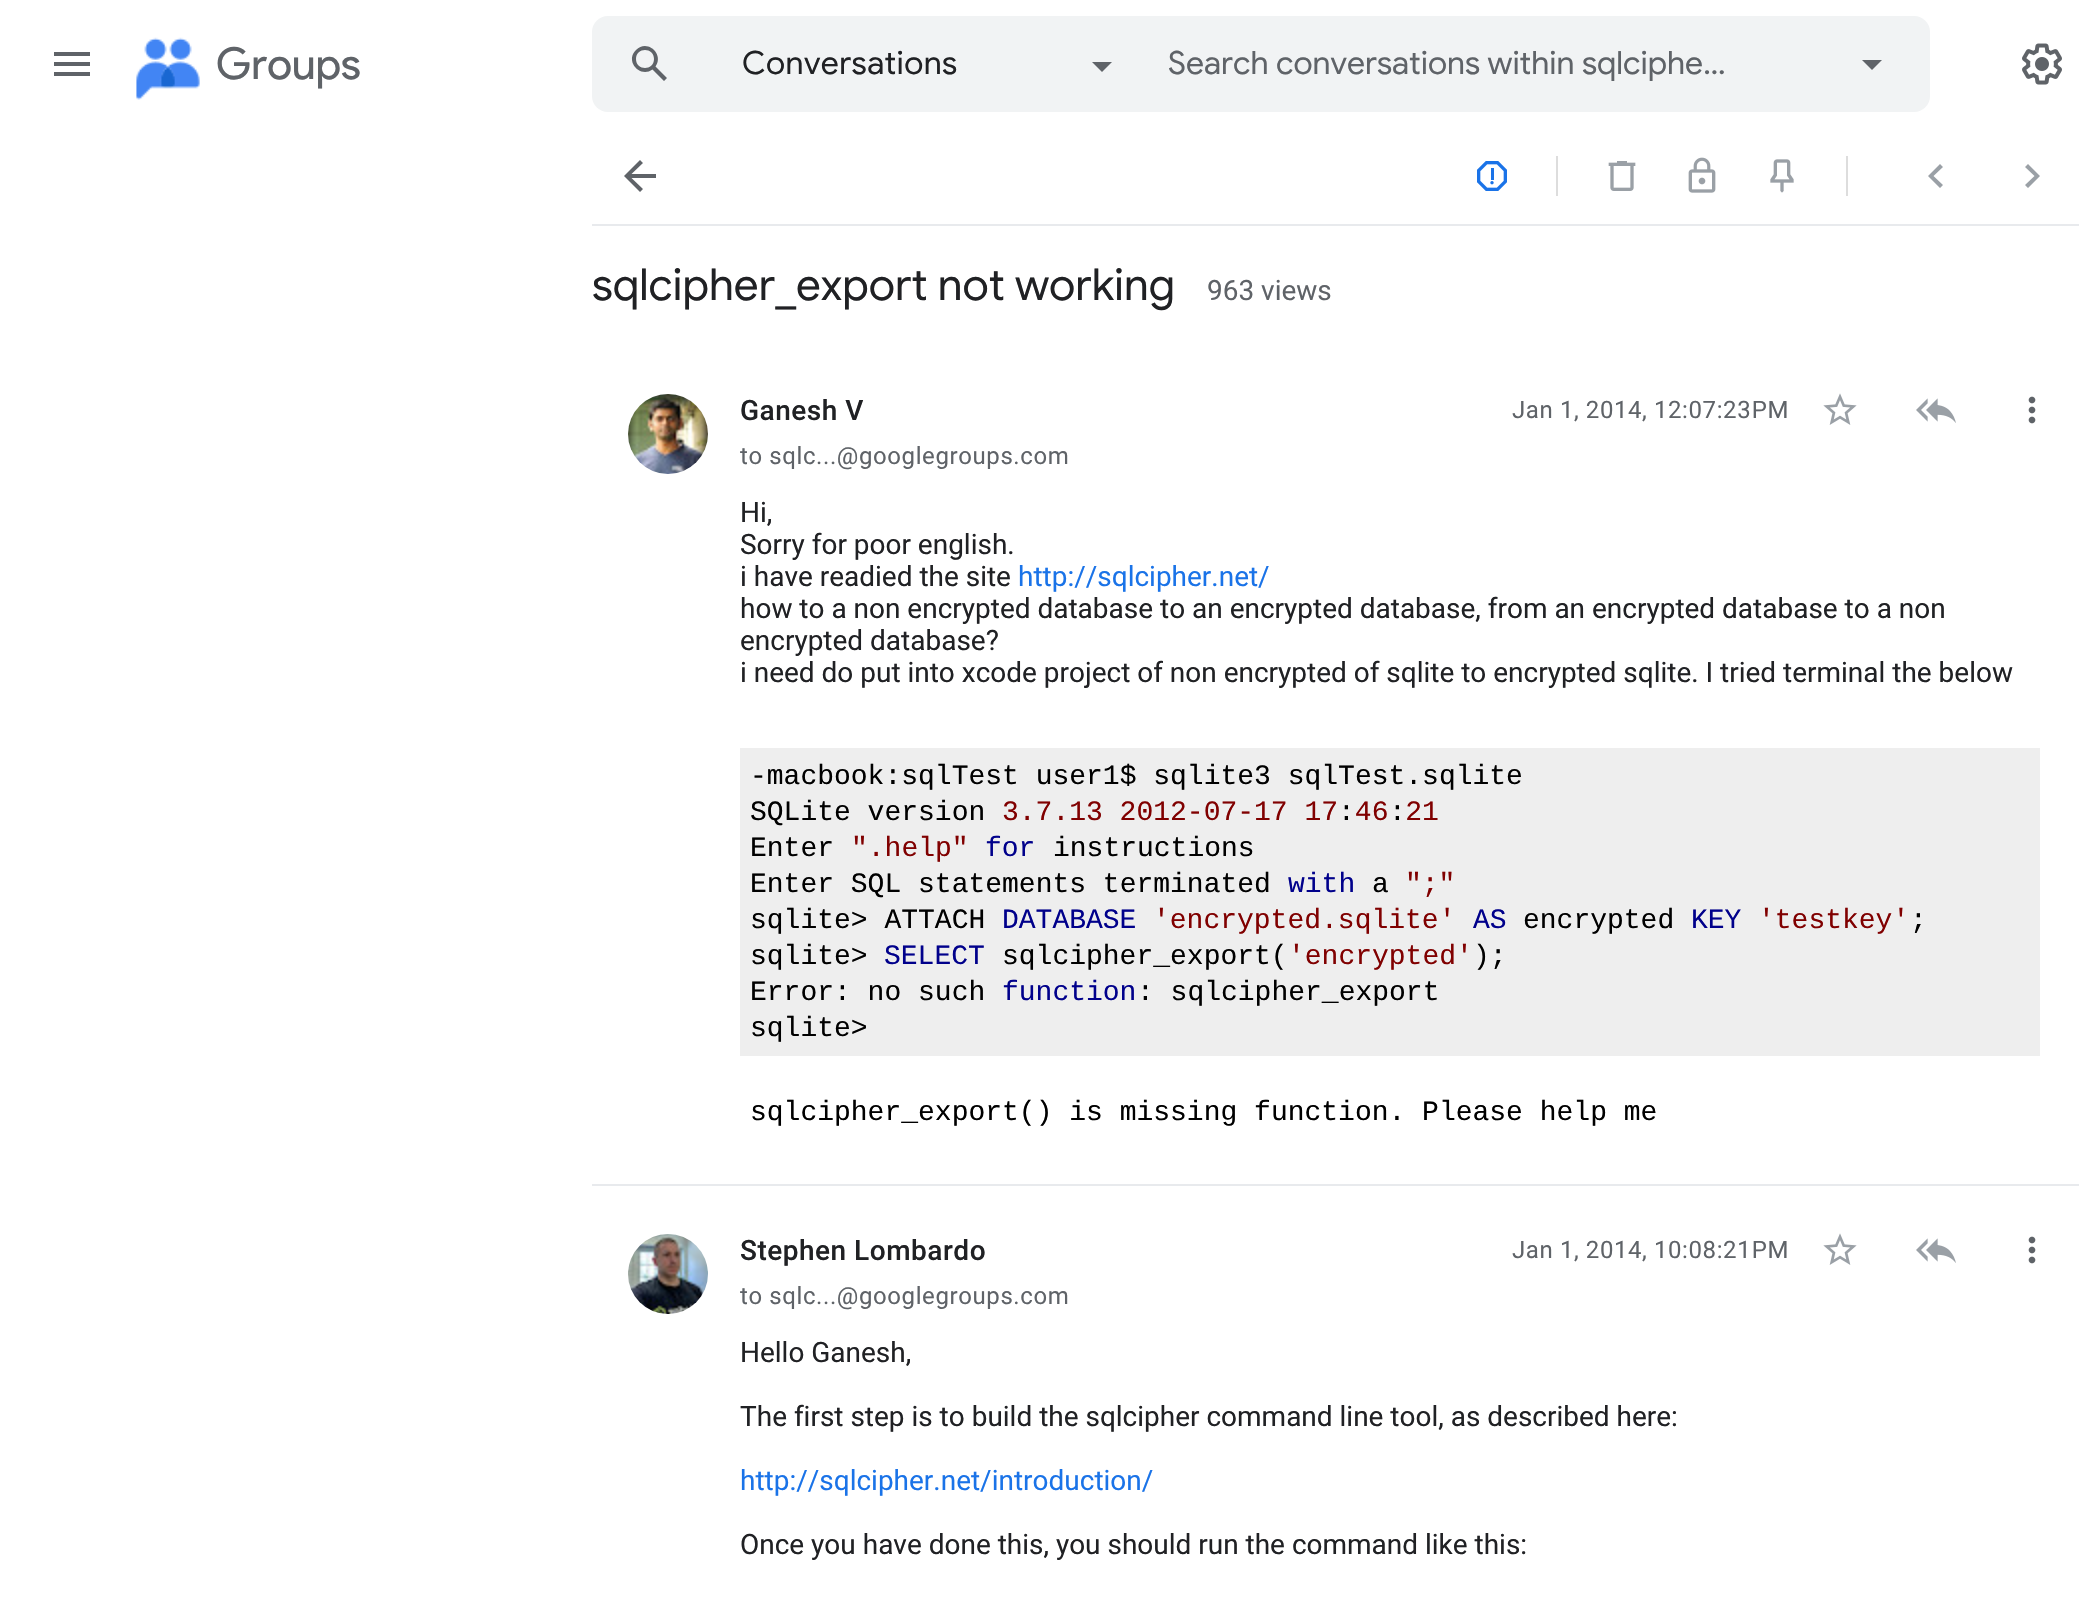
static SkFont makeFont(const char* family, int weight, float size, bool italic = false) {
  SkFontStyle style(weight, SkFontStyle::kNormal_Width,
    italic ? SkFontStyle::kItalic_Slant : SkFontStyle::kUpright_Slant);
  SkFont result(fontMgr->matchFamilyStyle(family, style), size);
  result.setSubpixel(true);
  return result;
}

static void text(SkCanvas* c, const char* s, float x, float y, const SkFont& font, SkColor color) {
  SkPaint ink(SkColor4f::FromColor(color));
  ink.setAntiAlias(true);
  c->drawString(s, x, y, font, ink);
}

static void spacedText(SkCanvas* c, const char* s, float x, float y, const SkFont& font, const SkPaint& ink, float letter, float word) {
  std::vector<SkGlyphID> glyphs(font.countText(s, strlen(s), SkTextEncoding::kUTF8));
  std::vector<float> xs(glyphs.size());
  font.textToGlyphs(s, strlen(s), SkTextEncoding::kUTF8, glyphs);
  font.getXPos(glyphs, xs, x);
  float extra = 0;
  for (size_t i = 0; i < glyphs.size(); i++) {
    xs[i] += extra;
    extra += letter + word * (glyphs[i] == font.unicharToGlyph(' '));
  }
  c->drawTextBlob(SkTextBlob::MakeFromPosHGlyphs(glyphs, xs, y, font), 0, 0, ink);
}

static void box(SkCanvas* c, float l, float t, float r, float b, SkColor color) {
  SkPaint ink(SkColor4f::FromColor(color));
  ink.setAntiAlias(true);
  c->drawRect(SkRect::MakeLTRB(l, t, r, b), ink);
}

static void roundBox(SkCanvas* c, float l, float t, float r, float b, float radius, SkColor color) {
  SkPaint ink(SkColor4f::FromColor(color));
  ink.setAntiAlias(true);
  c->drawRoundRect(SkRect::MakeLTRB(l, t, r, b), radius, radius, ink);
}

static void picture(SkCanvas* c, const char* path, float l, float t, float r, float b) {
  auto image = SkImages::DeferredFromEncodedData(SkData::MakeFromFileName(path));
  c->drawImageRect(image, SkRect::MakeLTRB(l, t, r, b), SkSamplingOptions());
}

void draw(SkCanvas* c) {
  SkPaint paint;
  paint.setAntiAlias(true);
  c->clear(0xffffffff);
  paint.setColor(0xff5f6368);
  c->drawPath(SkPathBuilder().moveTo(54, 76).lineTo(90, 76).lineTo(90, 72).lineTo(54, 72).close().moveTo(54, 66).lineTo(90, 66).lineTo(90, 62).lineTo(54, 62).close().moveTo(54, 52).lineTo(54, 56).lineTo(90, 56).lineTo(90, 52).close().detach(), paint);
  picture(c, "img_01.png", 136, 37, 200, 100);
  SkFont face1 = makeFont("Product Sans", 400, 44);
  text(c, "Groups", 216, 79, face1, 0xff5f6368);
  roundBox(c, 592, 16, 1930, 112, 16, 0xfff1f3f4);
  c->drawPath(SkPathBuilder().moveTo(667, 78).lineTo(655.5f, 66.5f).cubicTo(664.5f, 54, 647, 38.5f, 636, 50).cubicTo(624.5f, 61, 640, 78.5f, 652.5f, 69.5f).lineTo(664, 81).close().moveTo(636, 59).cubicTo(636, 47, 654, 47, 654, 59).cubicTo(654, 71, 636, 71, 636, 59).close().detach(), paint);
  SkFont face2 = makeFont("Google Sans", 400, 32);
  paint.setColor(0xff202124);
  spacedText(c, "Conversations", 742, 74, face2, paint, 0.4f, 0);
  paint.setColor(0xff5f6368);
  c->drawPath(SkPathBuilder().moveTo(1092, 62).lineTo(1112, 62).lineTo(1102, 72).close().detach(), paint);
  text(c, "Search conversations within sqlciphe…", 1168, 74, face2, 0xff5f6368);
  c->drawPath(SkPathBuilder().moveTo(1862, 60).lineTo(1872, 70).lineTo(1882, 60).close().detach(), paint);
  picture(c, "img_02.png", 2022, 43, 2062, 85);
  box(c, 592, 224, 2079, 226, 0xffe8eaed);
  c->drawPath(SkPathBuilder().moveTo(656, 174).lineTo(656, 178).lineTo(631.5f, 178).lineTo(643, 189).lineTo(640, 192).lineTo(624, 176).lineTo(640, 160).lineTo(643, 163).lineTo(631.5f, 174).close().detach(), paint);
  picture(c, "img_03.png", 1477, 161, 1507, 191);
  box(c, 1556, 156, 1558, 196, 0xffdddddd);
  picture(c, "img_04.png", 1608, 161, 1636, 191);
  picture(c, "img_05.png", 1688, 157, 1716, 193);
  picture(c, "img_06.png", 1770, 159, 1794, 193);
  box(c, 1846, 156, 1848, 196, 0xffdddddd);
  paint.setColor(0xff9aa0a6);
  c->drawPath(SkPathBuilder().moveTo(1943, 167).lineTo(1933.5f, 176).lineTo(1943, 185).lineTo(1940, 188).lineTo(1928, 176).lineTo(1940, 164).close().detach(), paint);
  c->drawPath(SkPathBuilder().moveTo(2028, 164).lineTo(2040, 176).lineTo(2028, 188).lineTo(2025, 185).lineTo(2034.5f, 176).lineTo(2025, 167).close().detach(), paint);
  SkFont face3 = makeFont("Google Sans", 400, 44);
  text(c, "sqlcipher_export not working", 592, 300, face3, 0xff202124);
  SkFont face4 = makeFont("Roboto", 400, 28);
  text(c, "963 views", 1207, 300, face4, 0xff5f6368);
  box(c, 592, 1184, 2079, 1186, 0xffe8eaed);
  picture(c, "img_07.png", 628, 394, 708, 474);
  SkFont face5 = makeFont("Roboto", 500, 28);
  paint.setColor(0xff202124);
  spacedText(c, "Ganesh V", 740, 420, face5, paint, 0.5f, 0);
  SkFont face6 = makeFont("Roboto", 400, 24);
  paint.setColor(0xff5f6368);
  spacedText(c, "Jan 1, 2014, 12:07:23 PM", 1512, 418, face6, paint, 0.6f, 0);
  picture(c, "img_08.png", 1823, 393, 1857, 425);
  picture(c, "img_09.png", 1916, 398, 1956, 423);
  picture(c, "img_10.png", 2028, 396, 2036, 424);
  spacedText(c, "to sqlc...@googlegroups.com", 740, 464, face6, paint, 0.6f, 0);
  text(c, "Hi,", 740, 522, face4, 0xff202124);
  text(c, "Sorry for poor english.", 740, 554, face4, 0xff202124);
  text(c, "i have readied the site", 740, 586, face4, 0xff202124);
  text(c, "http://sqlcipher.net/", 1018, 586, face4, 0xff1a73e8);
  text(c, "how to a non encrypted database to an encrypted database, from an encrypted database to a non", 740, 618, face4, 0xff202124);
  text(c, "encrypted database?", 740, 650, face4, 0xff202124);
  text(c, "i need do put into xcode project of non encrypted of sqlite to encrypted sqlite. I tried terminal the below", 740, 682, face4, 0xff202124);
  box(c, 740, 748, 2040, 1056, 0xffeeeeee);
  SkFont face7 = makeFont("Liberation Mono", 400, 28);
  text(c, "-macbook:sqlTest user1$ sqlite3 sqlTest.sqlite", 750, 784, face7, 0xff000000);
  text(c, "SQLite version", 750, 820, face7, 0xff000000);
  text(c, "3.7.13 2012-07-17 17 46 21", 1002, 820, face7, 0xff800000);
  text(c, ":", 1338, 820, face7, 0xff000000);
  text(c, ":", 1389, 820, face7, 0xff000000);
  text(c, "Enter", 750, 856, face7, 0xff000000);
  text(c, "\".help\"", 851, 856, face7, 0xff800000);
  text(c, "for", 985, 856, face7, 0xff00008b);
  text(c, "instructions", 1053, 856, face7, 0xff000000);
  text(c, "Enter SQL statements terminated", 750, 892, face7, 0xff000000);
  text(c, "with", 1288, 892, face7, 0xff00008b);
  text(c, "a", 1372, 892, face7, 0xff000000);
  text(c, "\";\"", 1405, 892, face7, 0xff800000);
  text(c, "sqlite> ATTACH", 750, 928, face7, 0xff000000);
  text(c, "DATABASE", 1002, 928, face7, 0xff00008b);
  text(c, "'encrypted.sqlite'", 1153, 928, face7, 0xff800000);
  text(c, "AS", 1473, 928, face7, 0xff00008b);
  text(c, "encrypted", 1523, 928, face7, 0xff000000);
  text(c, "KEY", 1691, 928, face7, 0xff00008b);
  text(c, "'testkey'", 1758, 928, face7, 0xff800000);
  text(c, ";", 1910, 928, face7, 0xff000000);
  text(c, "sqlite>", 750, 964, face7, 0xff000000);
  text(c, "SELECT", 884, 964, face7, 0xff00008b);
  text(c, "sqlcipher_export(", 1002, 964, face7, 0xff000000);
  text(c, "'encrypted'", 1288, 964, face7, 0xff800000);
  text(c, ");", 1473, 964, face7, 0xff000000);
  text(c, "Error: no such", 750, 1000, face7, 0xff000000);
  text(c, "function", 1002, 1000, face7, 0xff00008b);
  text(c, ": sqlcipher_export", 1137, 1000, face7, 0xff000000);
  text(c, "sqlite>", 750, 1036, face7, 0xff000000);
  text(c, "sqlcipher_export() is missing function. Please help me", 750, 1120, face7, 0xff000000);
  picture(c, "img_11.png", 628, 1234, 708, 1314);
  paint.setColor(0xff202124);
  spacedText(c, "Stephen Lombardo", 740, 1260, face5, paint, 0.5f, 0);
  paint.setColor(0xff5f6368);
  spacedText(c, "Jan 1, 2014, 10:08:21 PM", 1512, 1258, face6, paint, 0.6f, 0);
  picture(c, "img_08.png", 1823, 1233, 1857, 1265);
  picture(c, "img_09.png", 1916, 1238, 1956, 1263);
  picture(c, "img_10.png", 2028, 1236, 2036, 1264);
  spacedText(c, "to sqlc...@googlegroups.com", 740, 1304, face6, paint, 0.6f, 0);
  text(c, "Hello Ganesh,", 740, 1362, face4, 0xff202124);
  text(c, "The first step is to build the sqlcipher command line tool, as described here:", 740, 1426, face4, 0xff202124);
  text(c, "http://sqlcipher.net/introduction/", 740, 1490, face4, 0xff1a73e8);
  text(c, "Once you have done this, you should run the command like this:", 740, 1554, face4, 0xff202124);
}
